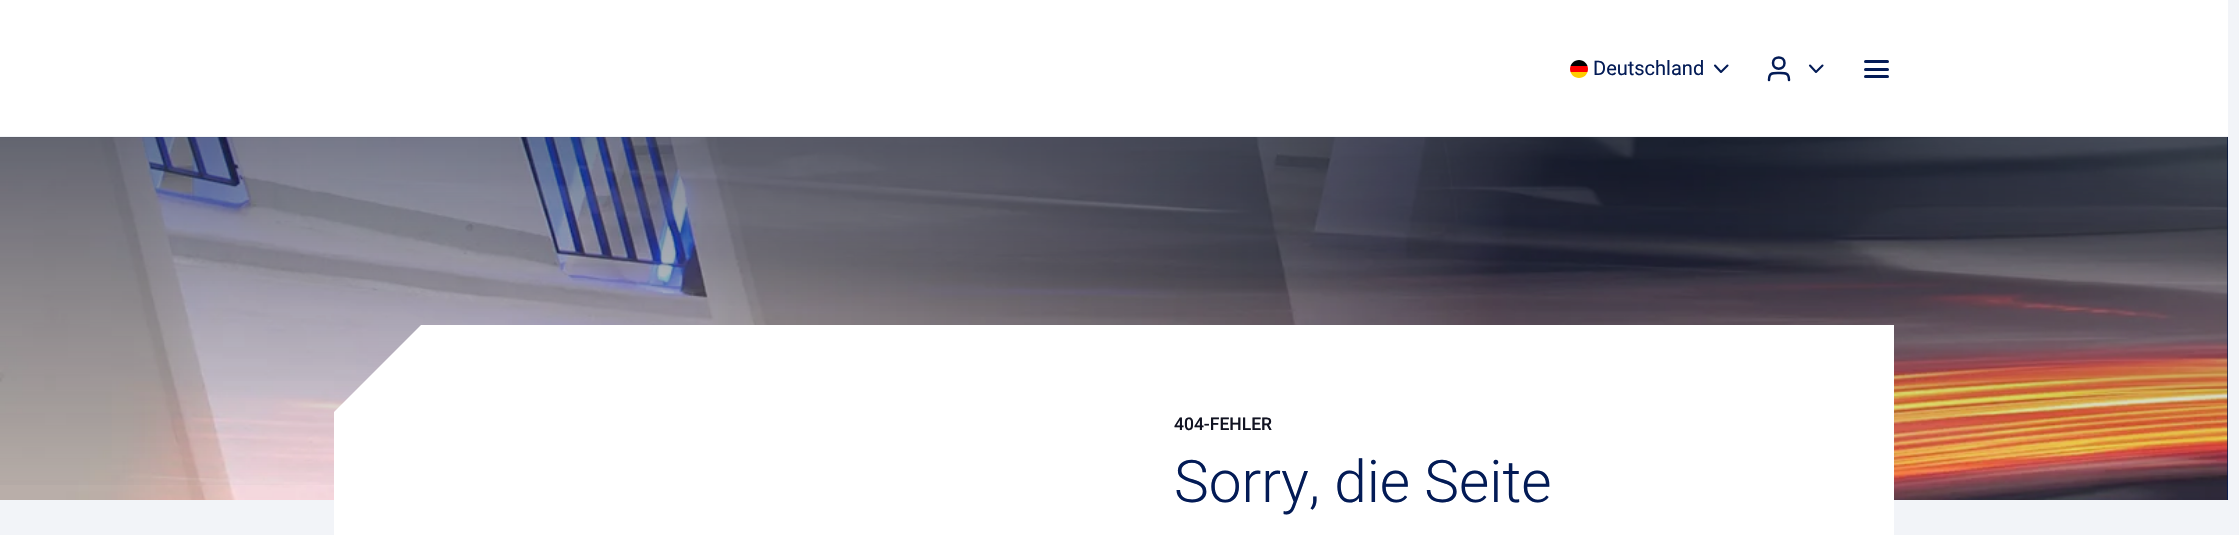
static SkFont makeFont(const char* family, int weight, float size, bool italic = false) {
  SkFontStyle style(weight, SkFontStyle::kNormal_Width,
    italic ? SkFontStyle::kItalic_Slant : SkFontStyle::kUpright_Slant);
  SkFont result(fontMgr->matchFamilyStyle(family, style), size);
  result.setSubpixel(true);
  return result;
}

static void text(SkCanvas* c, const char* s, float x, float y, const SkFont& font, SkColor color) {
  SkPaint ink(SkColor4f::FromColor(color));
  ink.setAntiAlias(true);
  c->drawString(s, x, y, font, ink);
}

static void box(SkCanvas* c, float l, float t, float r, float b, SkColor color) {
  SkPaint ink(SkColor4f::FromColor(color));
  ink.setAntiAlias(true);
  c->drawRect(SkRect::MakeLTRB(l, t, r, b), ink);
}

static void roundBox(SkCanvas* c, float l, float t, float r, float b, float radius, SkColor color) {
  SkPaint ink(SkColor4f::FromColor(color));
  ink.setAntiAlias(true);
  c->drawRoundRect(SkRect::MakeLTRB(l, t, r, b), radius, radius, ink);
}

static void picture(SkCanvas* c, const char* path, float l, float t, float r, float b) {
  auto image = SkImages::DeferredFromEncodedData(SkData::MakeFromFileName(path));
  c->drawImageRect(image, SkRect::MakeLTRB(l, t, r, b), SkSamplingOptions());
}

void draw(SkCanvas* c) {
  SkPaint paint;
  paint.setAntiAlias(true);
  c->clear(0xfff2f4f8);
  box(c, 2227, 137, 2228, 500, 0xff031b56);
  picture(c, "img_01.png", 0, 137, 2228, 500);
  {
    const SkColor colors[] = {0xb3000c28, 0x00000c28};
    const float stops[] = {0, 1};
    const SkPoint ends[] = {{1114, 0}, {1114, 500}};
    paint.setShader(SkGradientShader::MakeLinear(ends, colors, stops, 2, SkTileMode::kClamp));
    paint.setAlpha(255);
  }
  c->drawRect(SkRect::MakeLTRB(0, 137, 2228, 485), paint);
  c->save();
  c->clipRect(SkRect::MakeLTRB(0, 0, 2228, 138));
  paint.setShader(nullptr);
  paint.setColor(0x1a101828);
  paint.setMaskFilter(SkMaskFilter::MakeBlur(kNormal_SkBlurStyle, 5));
  c->drawRect(SkRect::MakeLTRB(3, 8, 2225, 140), paint);
  paint.setMaskFilter(nullptr);
  c->restore();
  box(c, 0, 0, 2228, 136, 0xffffffff);
  box(c, 0, 136, 2228, 137, 0xfff2f4f8);
  c->save();
  c->clipPath(SkPathBuilder().moveTo(1579, 60).cubicTo(1584, 60, 1588, 64, 1588, 69).cubicTo(1588, 74, 1584, 78, 1579, 78).cubicTo(1574, 78, 1570, 74, 1570, 69).cubicTo(1570, 64, 1574, 60, 1579, 60).close().detach(), true);
  box(c, 1570, 72, 1588, 78, 0xffffcc00);
  box(c, 1570, 60, 1588, 66, 0xff000001);
  box(c, 1570, 66, 1588, 72, 0xffff0000);
  c->restore();
  SkFont face1 = makeFont("Roboto", 400, 20);
  text(c, "Deutschland", 1593, 75, face1, 0xff031b56);
  paint.setStyle(SkPaint::kStroke_Style);
  paint.setStrokeWidth(2.1f);
  paint.setStrokeCap(SkPaint::kRound_Cap);
  paint.setStrokeJoin(SkPaint::kRound_Join);
  paint.setColor(0xff031b56);
  c->drawPath(SkPathBuilder().moveTo(1715, 65.5f).lineTo(1721, 72).lineTo(1727.5f, 65.5f).detach(), paint);
  paint.setStrokeWidth(2.5f);
  c->drawPath(SkPathBuilder().moveTo(1789, 80).cubicTo(1789, 72.5f, 1785, 73, 1779, 73).cubicTo(1772.5f, 73, 1769, 72.5f, 1769, 80).moveTo(1784.5f, 63).cubicTo(1784.5f, 70.5f, 1773, 70.5f, 1773, 63).cubicTo(1773, 55.5f, 1784.5f, 55.5f, 1784.5f, 63).detach(), paint);
  paint.setStrokeWidth(2.1f);
  c->drawPath(SkPathBuilder().moveTo(1810, 65.5f).lineTo(1816, 72).lineTo(1822.5f, 65.5f).detach(), paint);
  roundBox(c, 1864, 68, 1889, 71, 1.5f, 0xff031b56);
  roundBox(c, 1864, 60, 1889, 63, 1.5f, 0xff031b56);
  roundBox(c, 1864, 75, 1889, 78, 1.5f, 0xff031b56);
  paint.setStyle(SkPaint::kFill_Style);
  paint.setColor(0xffffffff);
  c->drawPath(SkPathBuilder().moveTo(421, 325).lineTo(334, 412).lineTo(334, 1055).lineTo(1807, 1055).lineTo(1894, 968).lineTo(1894, 325).close().detach(), paint);
  SkFont face2 = makeFont("Roboto", 500, 17.5f);
  text(c, "404-FEHLER", 1174, 430, face2, 0xff111322);
  SkFont face3 = makeFont("Roboto", 300, 58.5f);
  text(c, "Sorry, die Seite", 1174, 502, face3, 0xff031b56);
}
